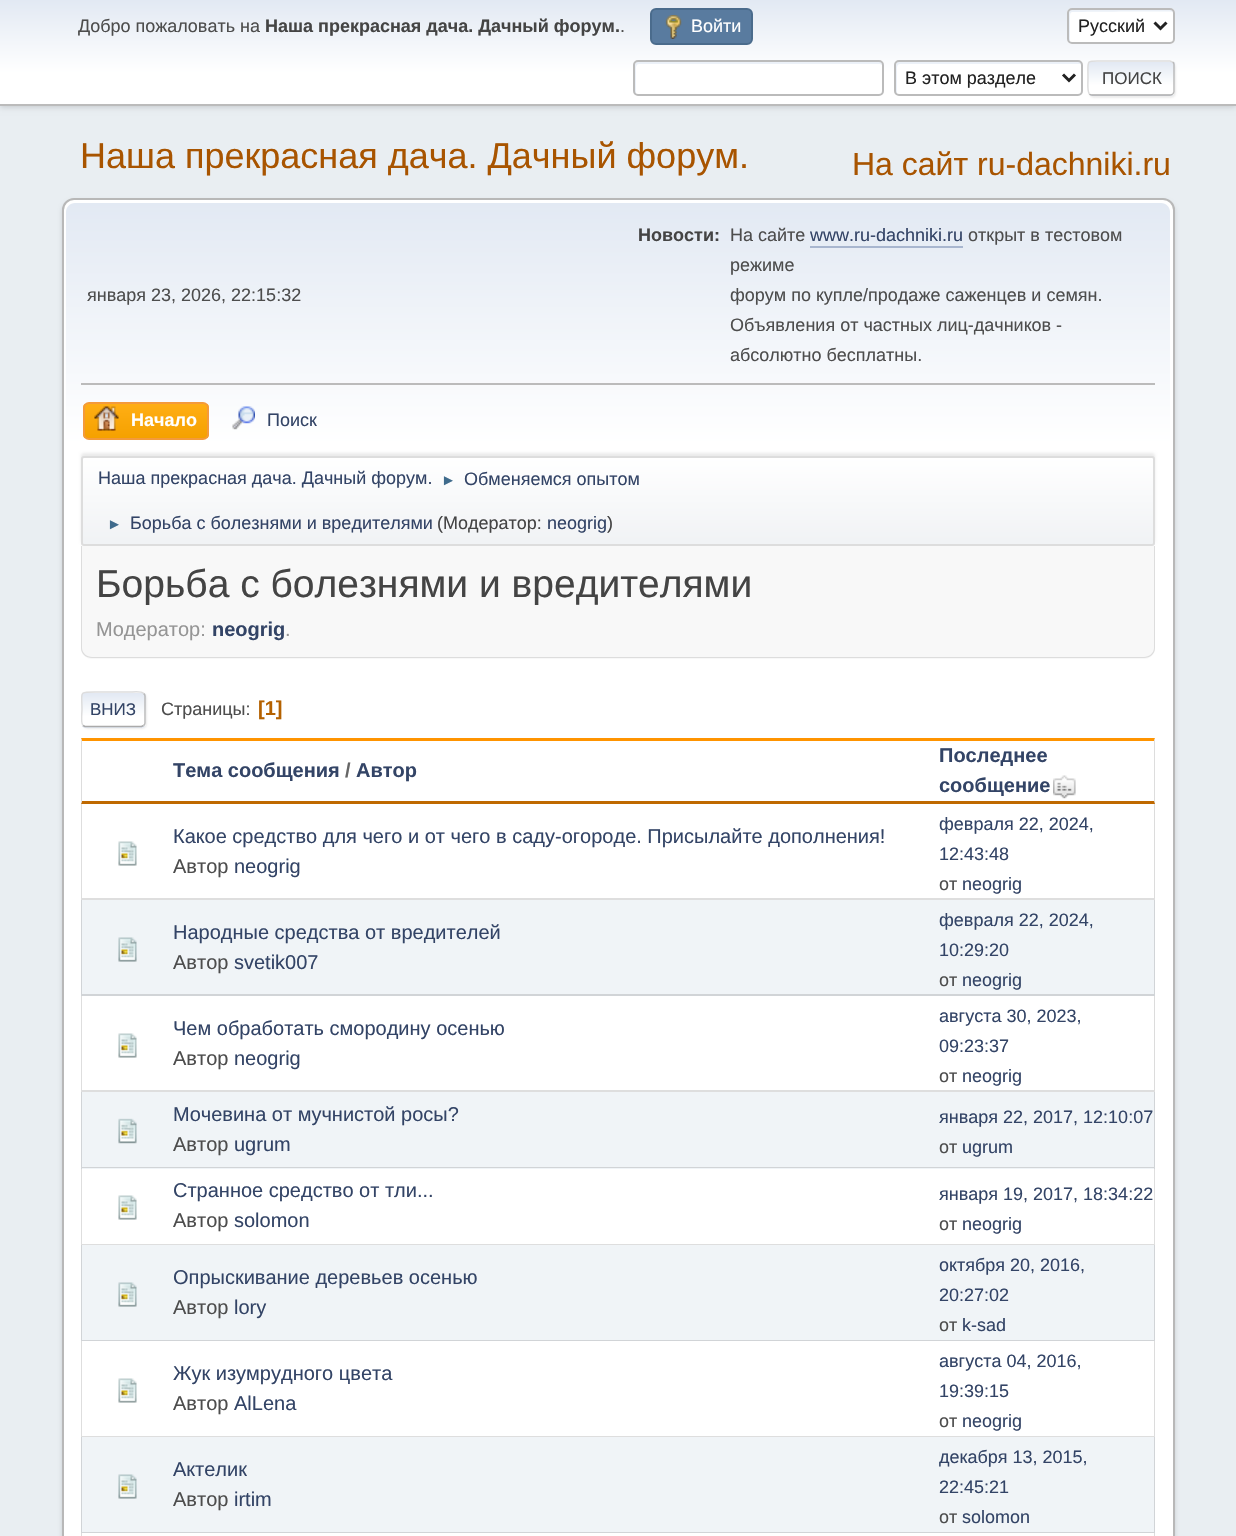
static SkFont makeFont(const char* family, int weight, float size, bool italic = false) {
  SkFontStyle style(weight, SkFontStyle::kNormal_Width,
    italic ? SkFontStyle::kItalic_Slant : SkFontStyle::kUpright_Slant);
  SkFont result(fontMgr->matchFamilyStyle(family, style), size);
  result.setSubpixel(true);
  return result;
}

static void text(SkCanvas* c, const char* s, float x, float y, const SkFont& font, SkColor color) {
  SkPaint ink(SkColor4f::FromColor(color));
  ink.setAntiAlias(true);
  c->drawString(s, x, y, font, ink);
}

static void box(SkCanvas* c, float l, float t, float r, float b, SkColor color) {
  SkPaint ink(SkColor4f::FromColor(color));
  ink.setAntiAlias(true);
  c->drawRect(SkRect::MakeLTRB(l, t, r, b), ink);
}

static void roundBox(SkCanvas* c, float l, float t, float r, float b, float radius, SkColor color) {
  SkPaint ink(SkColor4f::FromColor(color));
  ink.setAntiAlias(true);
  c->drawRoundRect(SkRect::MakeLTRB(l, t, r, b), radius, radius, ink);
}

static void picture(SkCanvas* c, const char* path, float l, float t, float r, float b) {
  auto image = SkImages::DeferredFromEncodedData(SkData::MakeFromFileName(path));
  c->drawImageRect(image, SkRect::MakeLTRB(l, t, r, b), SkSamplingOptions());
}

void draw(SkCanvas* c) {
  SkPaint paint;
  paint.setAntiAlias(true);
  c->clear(0xffe9eef2);
  paint.setColor(0x29000000);
  paint.setMaskFilter(SkMaskFilter::MakeBlur(kNormal_SkBlurStyle, 3));
  c->drawRect(SkRect::MakeLTRB(0, 2, 1236, 107), paint);
  paint.setMaskFilter(nullptr);
  {
    const SkColor colors[] = {0xffe2e9f3, 0xffffffff};
    const float stops[] = {0, 0.7f};
    const SkPoint ends[] = {{618, 0}, {618, 104}};
    paint.setShader(SkGradientShader::MakeLinear(ends, colors, stops, 2, SkTileMode::kClamp));
    paint.setAlpha(255);
  }
  c->drawRect(SkRect::MakeLTRB(0, 0, 1236, 104), paint);
  box(c, 0, 104, 1236, 106, 0xffbbbbbb);
  SkFont face1 = makeFont("Liberation Sans", 400, 18);
  text(c, "Добро пожаловать на", 78, 32, face1, 0xff4d4d4d);
  SkFont face2 = makeFont("Liberation Sans", 700, 18);
  text(c, "Наша прекрасная дача. Дачный форум.", 265, 32, face2, 0xff444444);
  text(c, ".", 620, 32, face1, 0xff4d4d4d);
  paint.setShader(nullptr);
  paint.setColor(0xff597b9f);
  c->drawRoundRect(SkRect::MakeLTRB(651, 9, 752, 44), 5, 5, paint);
  paint.setStyle(SkPaint::kStroke_Style);
  paint.setStrokeWidth(2);
  paint.setColor(0xff4a6b8c);
  c->drawRoundRect(SkRect::MakeLTRB(651, 9, 752, 44), 5, 5, paint);
  picture(c, "img_01.png", 665, 15, 682, 39);
  text(c, "Войти", 691, 32, face1, 0xffffffff);
  roundBox(c, 1067, 8, 1175, 44, 5, 0xffffffff);
  paint.setStyle(SkPaint::kFill_Style);
  paint.setColor(0xffecf1f8);
  c->drawPath(SkPathBuilder().moveTo(1072, 12).cubicTo(1082, 12, 1172, 11, 1173, 12).cubicTo(1173, 10, 1172, 9, 1170, 9).lineTo(1071, 9).cubicTo(1069, 9, 1068, 10, 1068, 12).lineTo(1068, 39).cubicTo(1068, 40, 1069, 41, 1070, 42).lineTo(1070, 15).cubicTo(1070, 13, 1071, 12, 1072, 12).close().detach(), paint);
  paint.setStyle(SkPaint::kStroke_Style);
  paint.setColor(0xffbbbbbb);
  c->drawRoundRect(SkRect::MakeLTRB(1068, 9, 1174, 43), 4, 4, paint);
  paint.setStrokeWidth(3);
  paint.setColor(0xff222222);
  c->drawPath(SkPathBuilder().moveTo(1154.5f, 22.5f).lineTo(1160.5f, 28.5f).lineTo(1166.5f, 22.5f).detach(), paint);
  text(c, "Русский", 1078, 32, face1, 0xff222222);
  roundBox(c, 633, 60, 884, 96, 5, 0xffffffff);
  paint.setStyle(SkPaint::kFill_Style);
  paint.setColor(0xffecf1f8);
  c->drawPath(SkPathBuilder().moveTo(639, 64).lineTo(880, 64).lineTo(882, 65).cubicTo(882, 63, 881, 62, 879, 62).lineTo(638, 62).cubicTo(636, 62, 635, 63, 635, 65).lineTo(635, 92).cubicTo(635, 93, 635, 94, 636, 94).lineTo(636, 72).cubicTo(636, 70, 635, 64, 639, 64).close().detach(), paint);
  paint.setStyle(SkPaint::kStroke_Style);
  paint.setStrokeWidth(2);
  paint.setColor(0xffbbbbbb);
  c->drawRoundRect(SkRect::MakeLTRB(634, 61, 883, 95), 4, 4, paint);
  roundBox(c, 894, 60, 1083, 96, 5, 0xffffffff);
  paint.setStyle(SkPaint::kFill_Style);
  paint.setColor(0xffecf1f8);
  c->drawPath(SkPathBuilder().moveTo(900, 64).lineTo(1080, 64).lineTo(1082, 65).cubicTo(1082, 63, 1081, 62, 1079, 62).lineTo(899, 62).cubicTo(897, 62, 896, 63, 896, 65).lineTo(896, 92).cubicTo(896, 93, 896, 94, 897, 94).lineTo(897, 72).cubicTo(897, 70, 896, 64, 900, 64).close().detach(), paint);
  paint.setStyle(SkPaint::kStroke_Style);
  paint.setColor(0xffbbbbbb);
  c->drawRoundRect(SkRect::MakeLTRB(895, 61, 1082, 95), 4, 4, paint);
  paint.setStrokeWidth(3);
  paint.setColor(0xff222222);
  c->drawPath(SkPathBuilder().moveTo(1063, 74.5f).lineTo(1069, 80.5f).lineTo(1075, 74.5f).detach(), paint);
  text(c, "В этом разделе", 905, 84, face1, 0xff222222);
  paint.setStyle(SkPaint::kFill_Style);
  paint.setColor(0x91dddddd);
  paint.setMaskFilter(SkMaskFilter::MakeBlur(kNormal_SkBlurStyle, 1));
  c->drawRoundRect(SkRect::MakeLTRB(1089, 62, 1176, 98), 5, 5, paint);
  paint.setMaskFilter(nullptr);
  c->save();
  c->clipPath(SkPathBuilder().moveTo(1093, 60).lineTo(1170, 60).cubicTo(1173, 60, 1175, 62, 1175, 65).lineTo(1175, 91).cubicTo(1175, 94, 1173, 96, 1170, 96).lineTo(1093, 96).cubicTo(1090, 96, 1088, 94, 1088, 91).lineTo(1088, 65).cubicTo(1088, 62, 1090, 60, 1093, 60).close().detach(), true);
  {
    const SkColor colors[] = {0xffe2e9f3, 0xffffffff};
    const float stops[] = {0, 0.7f};
    const SkPoint ends[] = {{1131, 28}, {1131, 62}};
    paint.setShader(SkGradientShader::MakeLinear(ends, colors, stops, 2, SkTileMode::kClamp));
    paint.setAlpha(255);
  }
  c->drawRect(SkRect::MakeLTRB(1088, 60, 1175, 62), paint);
  {
    const SkColor colors[] = {0xffe2e9f3, 0xffffffff};
    const float stops[] = {0, 0.7f};
    const SkPoint ends[] = {{1131, 62}, {1131, 95}};
    paint.setShader(SkGradientShader::MakeLinear(ends, colors, stops, 2, SkTileMode::kClamp));
    paint.setAlpha(255);
  }
  c->drawRect(SkRect::MakeLTRB(1088, 62, 1175, 95), paint);
  {
    const SkColor colors[] = {0xffe2e9f3, 0xffffffff};
    const float stops[] = {0, 0.7f};
    const SkPoint ends[] = {{1131, 95}, {1131, 128}};
    paint.setShader(SkGradientShader::MakeLinear(ends, colors, stops, 2, SkTileMode::kClamp));
    paint.setAlpha(255);
  }
  c->drawRect(SkRect::MakeLTRB(1088, 95, 1175, 96), paint);
  c->restore();
  paint.setStyle(SkPaint::kStroke_Style);
  paint.setStrokeWidth(1.5f);
  paint.setShader(nullptr);
  paint.setColor(0xffbbbbbb);
  c->drawPath(SkPathBuilder().moveTo(1172.5f, 62).cubicTo(1173.5f, 62.5f, 1174, 63.5f, 1174, 64.5f).lineTo(1174, 91.5f).cubicTo(1174, 92.5f, 1173.5f, 93.5f, 1172.5f, 94).detach(), paint);
  paint.setColor(0xffaaaaaa);
  c->drawPath(SkPathBuilder().moveTo(1172.5f, 94).cubicTo(1172, 95, 1171, 95, 1170, 95).lineTo(1092, 95).cubicTo(1091, 95, 1090, 95, 1089.5f, 94).detach(), paint);
  paint.setColor(0xffdddddd);
  c->drawPath(SkPathBuilder().moveTo(1089.5f, 94).cubicTo(1087, 92, 1088, 81, 1088, 78).cubicTo(1088, 58.5f, 1085, 61, 1105, 61).lineTo(1170, 61).lineTo(1172.5f, 62).detach(), paint);
  SkFont face3 = makeFont("Liberation Sans", 400, 17);
  text(c, "ПОИСК", 1102, 84, face3, 0xff444444);
  SkFont face4 = makeFont("Liberation Sans", 400, 36);
  text(c, "Наша прекрасная дача. Дачный форум.", 80, 168, face4, 0xffa85400);
  SkFont face5 = makeFont("Liberation Sans", 400, 32);
  text(c, "На сайт ru-dachniki.ru", 852, 175, face5, 0xffa85400);
  paint.setStyle(SkPaint::kFill_Style);
  paint.setColor(0x24000000);
  paint.setMaskFilter(SkMaskFilter::MakeBlur(kNormal_SkBlurStyle, 2));
  c->drawRoundRect(SkRect::MakeLTRB(62, 201, 1175, 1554), 12, 12, paint);
  paint.setMaskFilter(nullptr);
  paint.setColor(0xffffffff);
  c->drawRoundRect(SkRect::MakeLTRB(63, 199, 1174, 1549), 11, 11, paint);
  paint.setStyle(SkPaint::kStroke_Style);
  paint.setStrokeWidth(2);
  paint.setColor(0xffb8b8b8);
  c->drawRoundRect(SkRect::MakeLTRB(63, 199, 1174, 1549), 11, 11, paint);
  paint.setStyle(SkPaint::kFill_Style);
  {
    const SkColor colors[] = {0xffe2e9f3, 0xffffffff};
    const float stops[] = {0, 0.7f};
    const SkPoint ends[] = {{618, 202}, {618, 549}};
    paint.setShader(SkGradientShader::MakeLinear(ends, colors, stops, 2, SkTileMode::kClamp));
    paint.setAlpha(255);
  }
  c->drawPath(SkPathBuilder().moveTo(75, 203).lineTo(1161, 203).cubicTo(1166, 203, 1170, 207, 1170, 212).lineTo(1170, 549).lineTo(66, 549).lineTo(66, 212).cubicTo(66, 207, 70, 203, 75, 203).close().detach(), paint);
  box(c, 81, 383, 1155, 385, 0xffbbbbbb);
  text(c, "января 23, 2026, 22:15:32", 87, 301, face1, 0xff4d4d4d);
  text(c, "Новости:", 638, 241, face2, 0xff444444);
  text(c, "На сайте", 730, 241, face1, 0xff4d4d4d);
  text(c, "www.ru-dachniki.ru", 810, 241, face1, 0xff334466);
  box(c, 810, 246, 963, 248, 0xffa8b6cf);
  text(c, "открыт в тестовом", 968, 241, face1, 0xff4d4d4d);
  text(c, "режиме", 730, 271, face1, 0xff4d4d4d);
  text(c, "форум по купле/продаже саженцев и семян.", 730, 301, face1, 0xff4d4d4d);
  text(c, "Объявления от частных лиц-дачников -", 730, 331, face1, 0xff4d4d4d);
  text(c, "абсолютно бесплатны.", 730, 361, face1, 0xff4d4d4d);
  c->save();
  c->clipPath(SkPathBuilder().moveTo(89, 402).lineTo(203, 402).cubicTo(206.5f, 402, 209, 404.5f, 209, 408).lineTo(209, 434).cubicTo(209, 437.5f, 206.5f, 440, 203, 440).lineTo(89, 440).cubicTo(85.5f, 440, 83, 437.5f, 83, 434).lineTo(83, 408).cubicTo(83, 404.5f, 85.5f, 402, 89, 402).close().detach(), true);
  {
    const SkColor colors[] = {0xffffae14, 0xfff5a100};
    const float stops[] = {0, 1};
    const SkPoint ends[] = {{146, 404}, {146, 438}};
    paint.setShader(SkGradientShader::MakeLinear(ends, colors, stops, 2, SkTileMode::kClamp));
    paint.setAlpha(255);
  }
  c->drawRect(SkRect::MakeLTRB(83, 404, 209, 438), paint);
  c->restore();
  paint.setStyle(SkPaint::kStroke_Style);
  paint.setShader(nullptr);
  paint.setColor(0xfff49a3a);
  c->drawRoundRect(SkRect::MakeLTRB(84, 403, 208, 439), 5, 5, paint);
  picture(c, "img_02.png", 94, 406, 119, 431);
  text(c, "Начало", 131, 426, face2, 0xffffffff);
  picture(c, "img_03.png", 232, 406, 255, 430);
  text(c, "Поиск", 267, 426, face1, 0xff334466);
  paint.setStyle(SkPaint::kFill_Style);
  paint.setColor(0x14000000);
  paint.setMaskFilter(SkMaskFilter::MakeBlur(kNormal_SkBlurStyle, 1.5f));
  c->drawRoundRect(SkRect::MakeLTRB(81, 453, 1155, 543), 3, 3, paint);
  paint.setMaskFilter(nullptr);
  c->save();
  c->clipPath(SkPathBuilder().moveTo(84, 456).lineTo(1152, 456).cubicTo(1153.5f, 456, 1155, 457.5f, 1155, 459).lineTo(1155, 543).cubicTo(1155, 544.5f, 1153.5f, 546, 1152, 546).lineTo(84, 546).cubicTo(82.5f, 546, 81, 544.5f, 81, 543).lineTo(81, 459).cubicTo(81, 457.5f, 82.5f, 456, 84, 456).close().detach(), true);
  {
    const SkColor colors[] = {0xffffffff, 0xfff1f3f5};
    const float stops[] = {0, 0.95f};
    const SkPoint ends[] = {{618, 457}, {618, 545}};
    paint.setShader(SkGradientShader::MakeLinear(ends, colors, stops, 2, SkTileMode::kClamp));
    paint.setAlpha(255);
  }
  c->drawRect(SkRect::MakeLTRB(81, 458, 1155, 545), paint);
  c->restore();
  paint.setStyle(SkPaint::kStroke_Style);
  paint.setShader(nullptr);
  paint.setColor(0xffdddddd);
  c->drawRoundRect(SkRect::MakeLTRB(82, 457, 1154, 545), 2, 2, paint);
  text(c, "Наша прекрасная дача. Дачный форум.", 98, 484, face1, 0xff334466);
  SkFont face6 = makeFont("Liberation Sans", 400, 15);
  text(c, "►", 441, 485, face6, 0xff3f6b8c);
  text(c, "Обменяемся опытом", 464, 485, face1, 0xff334466);
  text(c, "►", 107, 529, face6, 0xff3f6b8c);
  text(c, "Борьба с болезнями и вредителями", 130, 529, face1, 0xff334466);
  text(c, "(Модератор:", 437, 529, face1, 0xff444444);
  text(c, "neogrig", 547, 529, face1, 0xff334466);
  text(c, ")", 607, 529, face1, 0xff444444);
  paint.setStyle(SkPaint::kFill_Style);
  paint.setColor(0xfff8f8f8);
  c->drawPath(SkPathBuilder().moveTo(81, 546).lineTo(1155, 546).lineTo(1155, 648).cubicTo(1155, 654, 1150, 659, 1144, 659).lineTo(92, 659).cubicTo(86, 659, 81, 654, 81, 648).close().detach(), paint);
  paint.setColor(0xffdddddd);
  c->drawPath(SkPathBuilder(SkPathFillType::kEvenOdd).moveTo(81, 546).lineTo(1155, 546).lineTo(1155, 648).cubicTo(1155, 654, 1150, 658, 1144, 658).lineTo(92, 658).cubicTo(86, 658, 81, 654, 81, 648).close().moveTo(82, 546).lineTo(1154, 546).lineTo(1154, 648).cubicTo(1154, 653, 1149, 657, 1144, 657).lineTo(92, 657).cubicTo(87, 657, 82, 653, 82, 648).close().detach(), paint);
  SkFont face7 = makeFont("Liberation Sans", 400, 39);
  text(c, "Борьба с болезнями и вредителями", 96, 597, face7, 0xff444444);
  SkFont face8 = makeFont("Liberation Sans", 400, 20);
  text(c, "Модератор:", 96, 636, face8, 0xff959595);
  SkFont face9 = makeFont("Liberation Sans", 700, 20);
  text(c, "neogrig", 212, 636, face9, 0xff334466);
  text(c, ".", 285, 636, face8, 0xff959595);
  paint.setColor(0x91dddddd);
  paint.setMaskFilter(SkMaskFilter::MakeBlur(kNormal_SkBlurStyle, 1));
  c->drawRoundRect(SkRect::MakeLTRB(83, 693, 147, 729), 5, 5, paint);
  paint.setMaskFilter(nullptr);
  roundBox(c, 81, 692, 146, 728, 5, 0xffffffff);
  c->save();
  c->clipPath(SkPathBuilder().moveTo(86, 692).lineTo(141, 692).cubicTo(144, 692, 146, 694, 146, 697).lineTo(146, 723).cubicTo(146, 726, 144, 728, 141, 728).lineTo(86, 728).cubicTo(83, 728, 81, 726, 81, 723).lineTo(81, 697).cubicTo(81, 694, 83, 692, 86, 692).close().detach(), true);
  {
    const SkColor colors[] = {0xffe2e9f3, 0xffffffff};
    const float stops[] = {0, 0.7f};
    const SkPoint ends[] = {{113, 693}, {113, 726}};
    paint.setShader(SkGradientShader::MakeLinear(ends, colors, stops, 2, SkTileMode::kClamp));
    paint.setAlpha(255);
  }
  c->drawRect(SkRect::MakeLTRB(81, 693, 146, 726), paint);
  {
    const SkColor colors[] = {0xffe2e9f3, 0xffffffff};
    const float stops[] = {0, 0.7f};
    const SkPoint ends[] = {{113, 726}, {113, 759}};
    paint.setShader(SkGradientShader::MakeLinear(ends, colors, stops, 2, SkTileMode::kClamp));
    paint.setAlpha(255);
  }
  c->drawRect(SkRect::MakeLTRB(81, 726, 146, 728), paint);
  c->restore();
  paint.setStyle(SkPaint::kStroke_Style);
  paint.setStrokeWidth(1.5f);
  paint.setShader(nullptr);
  paint.setColor(0xffbbbbbb);
  c->drawPath(SkPathBuilder().moveTo(143.5f, 693.5f).cubicTo(144.5f, 694, 145, 695, 145, 696).lineTo(145, 723).cubicTo(145, 724, 144.5f, 725, 143.5f, 725.5f).detach(), paint);
  paint.setColor(0xffaaaaaa);
  c->drawPath(SkPathBuilder().moveTo(143.5f, 725.5f).lineTo(141.5f, 726.5f).lineTo(85, 726.5f).lineTo(83, 725.5f).detach(), paint);
  c->save();
  c->clipRect(SkRect::MakeLTRB(81, 681, 1155, 738));
  paint.setColor(0xffdddddd);
  c->drawPath(SkPathBuilder().moveTo(83, 725.5f).cubicTo(80.5f, 723.5f, 82, 712.5f, 82, 709.5f).cubicTo(82, 692, 78, 692, 95, 692).lineTo(132, 692).cubicTo(132.5f, 692, 141, 691, 143.5f, 693.5f).detach(), paint);
  c->restore();
  text(c, "ВНИЗ", 90, 715, face3, 0xff334466);
  text(c, "Страницы:", 161, 715, face1, 0xff4d4d4d);
  text(c, "[1]", 258, 715, face9, 0xffb46100);
  paint.setStyle(SkPaint::kFill_Style);
  paint.setColor(0xffff9400);
  c->drawPath(SkPathBuilder().moveTo(81, 738).lineTo(1155, 738).lineTo(1154, 741).lineTo(82, 741).close().detach(), paint);
  paint.setColor(0xffdddddd);
  c->drawPath(SkPathBuilder().moveTo(1155, 738).lineTo(1155, 804).lineTo(1154, 801).lineTo(1154, 741).close().detach(), paint);
  paint.setColor(0xffbf6900);
  c->drawPath(SkPathBuilder().moveTo(1155, 804).lineTo(81, 804).lineTo(82, 801).lineTo(1154, 801).close().detach(), paint);
  paint.setColor(0xffdddddd);
  c->drawPath(SkPathBuilder().moveTo(81, 804).lineTo(81, 738).lineTo(82, 741).lineTo(82, 801).close().detach(), paint);
  text(c, "Тема сообщения", 173, 777, face9, 0xff334466);
  text(c, "/", 345, 777, face9, 0xff666666);
  text(c, "Автор", 356, 777, face9, 0xff334466);
  text(c, "Последнее", 939, 762, face9, 0xff334466);
  text(c, "сообщение", 939, 792, face9, 0xff334466);
  picture(c, "img_04.png", 1053, 775, 1076, 799);
  paint.setColor(0xffdcdcdc);
  c->drawPath(SkPathBuilder().moveTo(1155, 804).lineTo(1155, 900).lineTo(1154, 898).lineTo(1154, 804).close().detach(), paint);
  paint.setColor(0x21000000);
  c->drawPath(SkPathBuilder().moveTo(1155, 900).lineTo(81, 900).lineTo(82, 898).lineTo(1154, 898).close().detach(), paint);
  c->drawPath(SkPathBuilder().moveTo(81, 900).lineTo(81, 804).lineTo(82, 804).lineTo(82, 898).close().detach(), paint);
  picture(c, "img_05.png", 118, 841, 137, 866);
  text(c, "Какое средство для чего и от чего в саду-огороде. Присылайте дополнения!", 173, 843, face8, 0xff334466);
  text(c, "Автор", 173, 873, face8, 0xff4d4d4d);
  text(c, "neogrig", 234, 873, face8, 0xff334466);
  text(c, "февраля 22, 2024,", 939, 830, face1, 0xff334466);
  text(c, "12:43:48", 939, 860, face1, 0xff334466);
  text(c, "от", 939, 890, face1, 0xff4d4d4d);
  text(c, "neogrig", 962, 890, face1, 0xff334466);
  box(c, 81, 900, 1155, 996, 0xfff0f4f7);
  paint.setColor(0xffd1d4d7);
  c->drawPath(SkPathBuilder().moveTo(1155, 900).lineTo(1155, 996).lineTo(1154, 994).lineTo(1154, 900).close().detach(), paint);
  paint.setColor(0x21000000);
  c->drawPath(SkPathBuilder().moveTo(1155, 996).lineTo(81, 996).lineTo(82, 994).lineTo(1154, 994).close().detach(), paint);
  c->drawPath(SkPathBuilder().moveTo(81, 996).lineTo(81, 900).lineTo(82, 900).lineTo(82, 994).close().detach(), paint);
  picture(c, "img_06.png", 118, 937, 137, 962);
  text(c, "Народные средства от вредителей", 173, 939, face8, 0xff334466);
  text(c, "Автор", 173, 969, face8, 0xff4d4d4d);
  text(c, "svetik007", 234, 969, face8, 0xff334466);
  text(c, "февраля 22, 2024,", 939, 926, face1, 0xff334466);
  text(c, "10:29:20", 939, 956, face1, 0xff334466);
  text(c, "от", 939, 986, face1, 0xff4d4d4d);
  text(c, "neogrig", 962, 986, face1, 0xff334466);
  paint.setColor(0xffdcdcdc);
  c->drawPath(SkPathBuilder().moveTo(1155, 996).lineTo(1155, 1092).lineTo(1154, 1090).lineTo(1154, 996).close().detach(), paint);
  paint.setColor(0x21000000);
  c->drawPath(SkPathBuilder().moveTo(1155, 1092).lineTo(81, 1092).lineTo(82, 1090).lineTo(1154, 1090).close().detach(), paint);
  c->drawPath(SkPathBuilder().moveTo(81, 1092).lineTo(81, 996).lineTo(82, 996).lineTo(82, 1090).close().detach(), paint);
  picture(c, "img_05.png", 118, 1033, 137, 1058);
  text(c, "Чем обработать смородину осенью", 173, 1035, face8, 0xff334466);
  text(c, "Автор", 173, 1065, face8, 0xff4d4d4d);
  text(c, "neogrig", 234, 1065, face8, 0xff334466);
  text(c, "августа 30, 2023,", 939, 1022, face1, 0xff334466);
  text(c, "09:23:37", 939, 1052, face1, 0xff334466);
  text(c, "от", 939, 1082, face1, 0xff4d4d4d);
  text(c, "neogrig", 962, 1082, face1, 0xff334466);
  box(c, 81, 1092, 1155, 1169, 0xfff0f4f7);
  paint.setColor(0xffd1d4d7);
  c->drawPath(SkPathBuilder().moveTo(1155, 1092).lineTo(1155, 1168).lineTo(1154, 1167).lineTo(1154, 1092).close().detach(), paint);
  paint.setColor(0x21000000);
  c->drawPath(SkPathBuilder().moveTo(1155, 1168).lineTo(81, 1168).lineTo(82, 1167).lineTo(1154, 1167).close().detach(), paint);
  c->drawPath(SkPathBuilder().moveTo(81, 1168).lineTo(81, 1092).lineTo(82, 1092).lineTo(82, 1167).close().detach(), paint);
  picture(c, "img_07.png", 118, 1118, 137, 1144);
  text(c, "Мочевина от мучнистой росы?", 173, 1121, face8, 0xff334466);
  text(c, "Автор", 173, 1151, face8, 0xff4d4d4d);
  text(c, "ugrum", 234, 1151, face8, 0xff334466);
  text(c, "января 22, 2017, 12:10:07", 939, 1123, face1, 0xff334466);
  text(c, "от", 939, 1153, face1, 0xff4d4d4d);
  text(c, "ugrum", 962, 1153, face1, 0xff334466);
  c->drawPath(SkPathBuilder().moveTo(1155, 1168).lineTo(1155, 1245).lineTo(1154, 1244).lineTo(1154, 1168).close().detach(), paint);
  c->drawPath(SkPathBuilder().moveTo(1155, 1245).lineTo(81, 1245).lineTo(82, 1244).lineTo(1154, 1244).close().detach(), paint);
  c->drawPath(SkPathBuilder().moveTo(81, 1245).lineTo(81, 1168).lineTo(82, 1168).lineTo(82, 1244).close().detach(), paint);
  picture(c, "img_05.png", 118, 1195, 137, 1220);
  text(c, "Странное средство от тли...", 173, 1197, face8, 0xff334466);
  text(c, "Автор", 173, 1227, face8, 0xff4d4d4d);
  text(c, "solomon", 234, 1227, face8, 0xff334466);
  text(c, "января 19, 2017, 18:34:22", 939, 1200, face1, 0xff334466);
  text(c, "от", 939, 1230, face1, 0xff4d4d4d);
  text(c, "neogrig", 962, 1230, face1, 0xff334466);
  box(c, 81, 1245, 1155, 1341, 0xfff0f4f7);
  paint.setColor(0xffd1d4d7);
  c->drawPath(SkPathBuilder().moveTo(1155, 1245).lineTo(1155, 1341).lineTo(1154, 1340).lineTo(1154, 1245).close().detach(), paint);
  paint.setColor(0x21000000);
  c->drawPath(SkPathBuilder().moveTo(1155, 1341).lineTo(81, 1341).lineTo(82, 1340).lineTo(1154, 1340).close().detach(), paint);
  c->drawPath(SkPathBuilder().moveTo(81, 1341).lineTo(81, 1245).lineTo(82, 1245).lineTo(82, 1340).close().detach(), paint);
  picture(c, "img_06.png", 118, 1282, 137, 1307);
  text(c, "Опрыскивание деревьев осенью", 173, 1284, face8, 0xff334466);
  text(c, "Автор", 173, 1314, face8, 0xff4d4d4d);
  text(c, "lory", 234, 1314, face8, 0xff334466);
  text(c, "октября 20, 2016,", 939, 1271, face1, 0xff334466);
  text(c, "20:27:02", 939, 1301, face1, 0xff334466);
  text(c, "от", 939, 1331, face1, 0xff4d4d4d);
  text(c, "k-sad", 962, 1331, face1, 0xff334466);
  paint.setColor(0xffdcdcdc);
  c->drawPath(SkPathBuilder().moveTo(1155, 1341).lineTo(1155, 1437).lineTo(1154, 1436).lineTo(1154, 1341).close().detach(), paint);
  paint.setColor(0x21000000);
  c->drawPath(SkPathBuilder().moveTo(1155, 1437).lineTo(81, 1437).lineTo(82, 1436).lineTo(1154, 1436).close().detach(), paint);
  c->drawPath(SkPathBuilder().moveTo(81, 1437).lineTo(81, 1341).lineTo(82, 1341).lineTo(82, 1436).close().detach(), paint);
  picture(c, "img_05.png", 118, 1378, 137, 1403);
  text(c, "Жук изумрудного цвета", 173, 1380, face8, 0xff334466);
  text(c, "Автор", 173, 1410, face8, 0xff4d4d4d);
  text(c, "AlLena", 234, 1410, face8, 0xff334466);
  text(c, "августа 04, 2016,", 939, 1367, face1, 0xff334466);
  text(c, "19:39:15", 939, 1397, face1, 0xff334466);
  text(c, "от", 939, 1427, face1, 0xff4d4d4d);
  text(c, "neogrig", 962, 1427, face1, 0xff334466);
  box(c, 81, 1437, 1155, 1533, 0xfff0f4f7);
  paint.setColor(0xffd1d4d7);
  c->drawPath(SkPathBuilder().moveTo(1155, 1437).lineTo(1155, 1533).lineTo(1154, 1532).lineTo(1154, 1437).close().detach(), paint);
  paint.setColor(0x21000000);
  c->drawPath(SkPathBuilder().moveTo(1155, 1533).lineTo(81, 1533).lineTo(82, 1532).lineTo(1154, 1532).close().detach(), paint);
  c->drawPath(SkPathBuilder().moveTo(81, 1533).lineTo(81, 1437).lineTo(82, 1437).lineTo(82, 1532).close().detach(), paint);
  picture(c, "img_06.png", 118, 1474, 137, 1499);
  text(c, "Актелик", 173, 1476, face8, 0xff334466);
  text(c, "Автор", 173, 1506, face8, 0xff4d4d4d);
  text(c, "irtim", 234, 1506, face8, 0xff334466);
  text(c, "декабря 13, 2015,", 939, 1463, face1, 0xff334466);
  text(c, "22:45:21", 939, 1493, face1, 0xff334466);
  text(c, "от", 939, 1523, face1, 0xff4d4d4d);
  text(c, "solomon", 962, 1523, face1, 0xff334466);
  paint.setColor(0xffdcdcdc);
  c->drawPath(SkPathBuilder().moveTo(1155, 1533).lineTo(1155, 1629).lineTo(1154, 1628).lineTo(1154, 1533).close().detach(), paint);
  c->drawPath(SkPathBuilder().moveTo(81, 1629).lineTo(81, 1533).lineTo(82, 1533).lineTo(82, 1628).close().detach(), paint);
}
